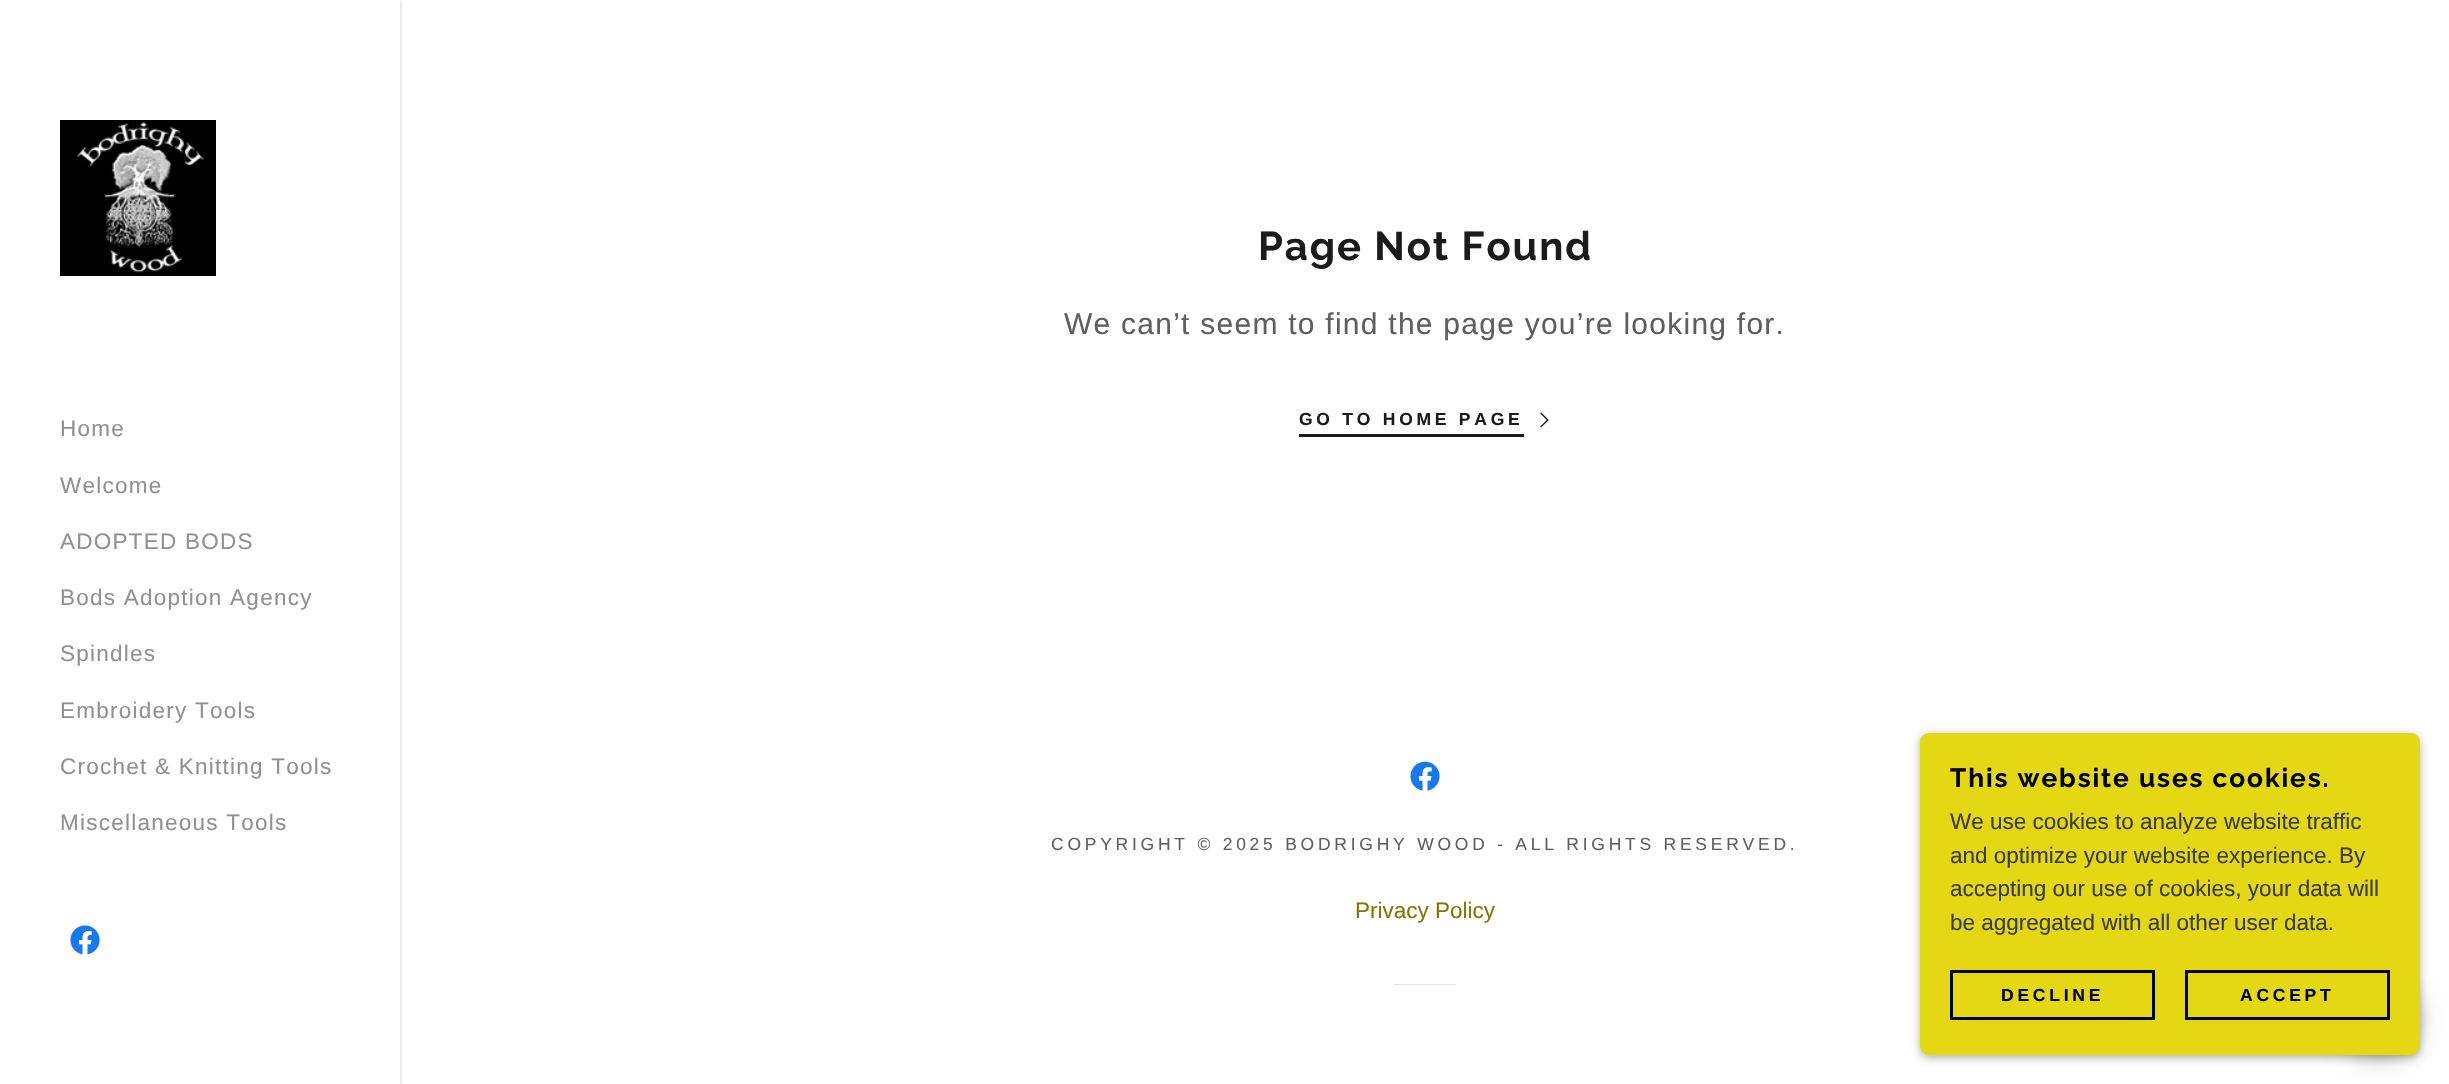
static SkFont makeFont(const char* family, int weight, float size, bool italic = false) {
  SkFontStyle style(weight, SkFontStyle::kNormal_Width,
    italic ? SkFontStyle::kItalic_Slant : SkFontStyle::kUpright_Slant);
  SkFont result(fontMgr->matchFamilyStyle(family, style), size);
  result.setSubpixel(true);
  return result;
}

static void text(SkCanvas* c, const char* s, float x, float y, const SkFont& font, SkColor color) {
  SkPaint ink(SkColor4f::FromColor(color));
  ink.setAntiAlias(true);
  c->drawString(s, x, y, font, ink);
}

static void spacedText(SkCanvas* c, const char* s, float x, float y, const SkFont& font, const SkPaint& ink, float letter, float word) {
  std::vector<SkGlyphID> glyphs(font.countText(s, strlen(s), SkTextEncoding::kUTF8));
  std::vector<float> xs(glyphs.size());
  font.textToGlyphs(s, strlen(s), SkTextEncoding::kUTF8, glyphs);
  font.getXPos(glyphs, xs, x);
  float extra = 0;
  for (size_t i = 0; i < glyphs.size(); i++) {
    xs[i] += extra;
    extra += letter + word * (glyphs[i] == font.unicharToGlyph(' '));
  }
  c->drawTextBlob(SkTextBlob::MakeFromPosHGlyphs(glyphs, xs, y, font), 0, 0, ink);
}

static void box(SkCanvas* c, float l, float t, float r, float b, SkColor color) {
  SkPaint ink(SkColor4f::FromColor(color));
  ink.setAntiAlias(true);
  c->drawRect(SkRect::MakeLTRB(l, t, r, b), ink);
}

static void roundBox(SkCanvas* c, float l, float t, float r, float b, float radius, SkColor color) {
  SkPaint ink(SkColor4f::FromColor(color));
  ink.setAntiAlias(true);
  c->drawRoundRect(SkRect::MakeLTRB(l, t, r, b), radius, radius, ink);
}

static void picture(SkCanvas* c, const char* path, float l, float t, float r, float b) {
  auto image = SkImages::DeferredFromEncodedData(SkData::MakeFromFileName(path));
  c->drawImageRect(image, SkRect::MakeLTRB(l, t, r, b), SkSamplingOptions());
}

void draw(SkCanvas* c) {
  SkPaint paint;
  paint.setAntiAlias(true);
  c->clear(0xffffffff);
  SkFont face1 = makeFont("Raleway", 700, 40);
  paint.setColor(0xff1b1b1b);
  spacedText(c, "Page Not Found", 1258, 260, face1, paint, 1.9f, 0);
  SkFont face2 = makeFont("Liberation Sans", 400, 30);
  paint.setColor(0xff5e5e5e);
  spacedText(c, "We can’t seem to find the page you’re looking for.", 1064, 334, face2, paint, 1.25f, 0);
  box(c, 1299, 434, 1524, 437, 0xff1b1b1b);
  SkFont face3 = makeFont("Liberation Sans", 700, 17.5f);
  paint.setColor(0xff1b1b1b);
  spacedText(c, "GO TO HOME PAGE", 1299, 425, face3, paint, 3.75f, 0);
  picture(c, "img_01.png", 1540, 412, 1549, 428);
  c->save();
  c->clipRect(SkRect::MakeLTRB(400, 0, 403, 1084));
  paint.setColor(0x33000000);
  paint.setMaskFilter(SkMaskFilter::MakeBlur(kNormal_SkBlurStyle, 2.5f));
  c->drawRect(SkRect::MakeLTRB(0, 0, 400, 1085), paint);
  paint.setMaskFilter(nullptr);
  c->restore();
  picture(c, "img_02.png", 60, 120, 216, 276);
  SkFont face4 = makeFont("Liberation Sans", 400, 22.5f);
  paint.setColor(0xff919191);
  spacedText(c, "Home", 60, 436, face4, paint, 1.25f, 0);
  spacedText(c, "Welcome", 60, 493, face4, paint, 1.25f, 0);
  spacedText(c, "ADOPTED BODS", 60, 549, face4, paint, 1.25f, 0);
  spacedText(c, "Bods Adoption Agency", 60, 605, face4, paint, 1.25f, 0);
  spacedText(c, "Spindles", 60, 661, face4, paint, 1.25f, 0);
  spacedText(c, "Embroidery Tools", 60, 718, face4, paint, 1.25f, 0);
  spacedText(c, "Crochet & Knitting Tools", 60, 774, face4, paint, 1.25f, 0);
  spacedText(c, "Miscellaneous Tools", 60, 830, face4, paint, 1.25f, 0);
  picture(c, "img_03.png", 70, 925, 100, 955);
  picture(c, "img_04.png", 1410, 761, 1440, 791);
  SkFont face5 = makeFont("Liberation Sans", 400, 17.5f);
  paint.setColor(0xff5e5e5e);
  spacedText(c, "COPYRIGHT © 2025 BODRIGHY WOOD - ALL RIGHTS RESERVED.", 1051, 850, face5, paint, 3.75f, 0);
  text(c, "Privacy Policy", 1355, 918, face4, 0xff7f7904);
  box(c, 1394, 984, 1456, 985, 0xffe2e2e2);
  paint.setColor(0x4d000000);
  paint.setMaskFilter(SkMaskFilter::MakeBlur(kNormal_SkBlurStyle, 4));
  c->drawRoundRect(SkRect::MakeLTRB(1920, 735, 2420, 1058), 9, 9, paint);
  paint.setMaskFilter(nullptr);
  paint.setColor(0x40000000);
  paint.setMaskFilter(SkMaskFilter::MakeBlur(kNormal_SkBlurStyle, 11));
  c->drawRoundRect(SkRect::MakeLTRB(2339, 978, 2420, 1059), 40.5f, 40.5f, paint);
  paint.setMaskFilter(nullptr);
  roundBox(c, 1920, 733, 2420, 1055, 9, 0xffe3d813);
  SkFont face6 = makeFont("Raleway", 700, 26.25f);
  paint.setColor(0xff000000);
  spacedText(c, "This website uses cookies.", 1950, 787, face6, paint, 1.9f, 0);
  text(c, "We use cookies to analyze website traffic", 1950, 829, face4, 0xff3c3b30);
  text(c, "and optimize your website experience. By", 1950, 863, face4, 0xff3c3b30);
  text(c, "accepting our use of cookies, your data will", 1950, 896, face4, 0xff3c3b30);
  text(c, "be aggregated with all other user data.", 1950, 930, face4, 0xff3c3b30);
  paint.setStyle(SkPaint::kStroke_Style);
  paint.setStrokeWidth(3);
  c->drawRect(SkRect::MakeLTRB(1951.5f, 971.5f, 2153.5f, 1018.5f), paint);
  paint.setStyle(SkPaint::kFill_Style);
  spacedText(c, "DECLINE", 2001, 1001, face3, paint, 3.75f, 0);
  paint.setStyle(SkPaint::kStroke_Style);
  c->drawRect(SkRect::MakeLTRB(2186.5f, 971.5f, 2388.5f, 1018.5f), paint);
  paint.setStyle(SkPaint::kFill_Style);
  spacedText(c, "ACCEPT", 2240, 1001, face3, paint, 3.75f, 0);
}
